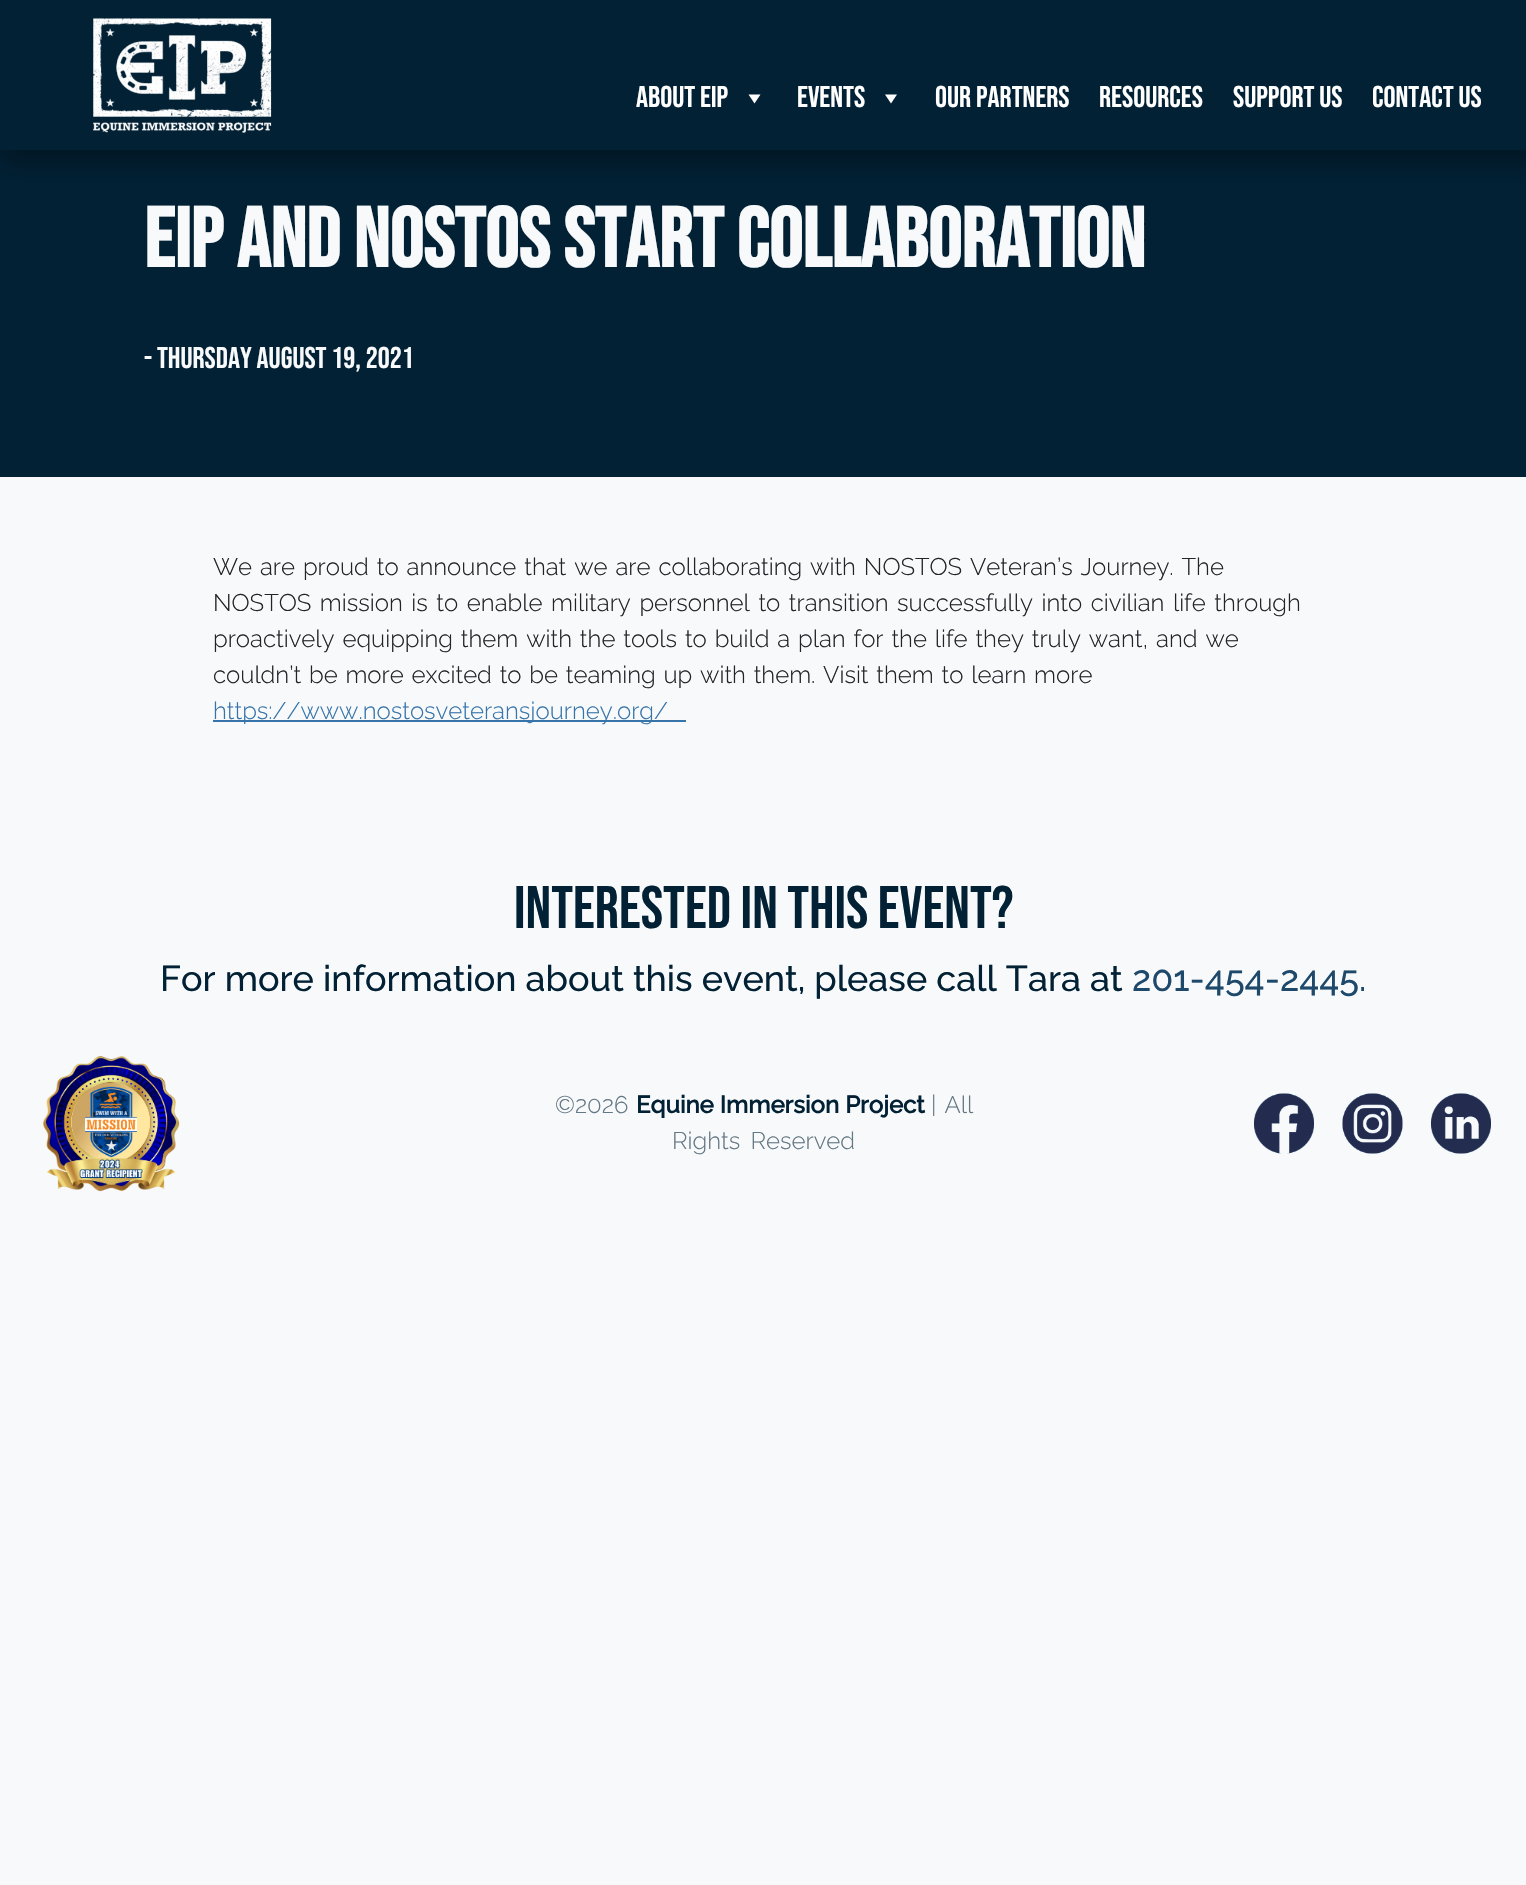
static SkFont makeFont(const char* family, int weight, float size, bool italic = false) {
  SkFontStyle style(weight, SkFontStyle::kNormal_Width,
    italic ? SkFontStyle::kItalic_Slant : SkFontStyle::kUpright_Slant);
  SkFont result(fontMgr->matchFamilyStyle(family, style), size);
  result.setSubpixel(true);
  return result;
}

static void text(SkCanvas* c, const char* s, float x, float y, const SkFont& font, SkColor color) {
  SkPaint ink(SkColor4f::FromColor(color));
  ink.setAntiAlias(true);
  c->drawString(s, x, y, font, ink);
}

static void spacedText(SkCanvas* c, const char* s, float x, float y, const SkFont& font, const SkPaint& ink, float letter, float word) {
  std::vector<SkGlyphID> glyphs(font.countText(s, strlen(s), SkTextEncoding::kUTF8));
  std::vector<float> xs(glyphs.size());
  font.textToGlyphs(s, strlen(s), SkTextEncoding::kUTF8, glyphs);
  font.getXPos(glyphs, xs, x);
  float extra = 0;
  for (size_t i = 0; i < glyphs.size(); i++) {
    xs[i] += extra;
    extra += letter + word * (glyphs[i] == font.unicharToGlyph(' '));
  }
  c->drawTextBlob(SkTextBlob::MakeFromPosHGlyphs(glyphs, xs, y, font), 0, 0, ink);
}

static void box(SkCanvas* c, float l, float t, float r, float b, SkColor color) {
  SkPaint ink(SkColor4f::FromColor(color));
  ink.setAntiAlias(true);
  c->drawRect(SkRect::MakeLTRB(l, t, r, b), ink);
}

static void picture(SkCanvas* c, const char* path, float l, float t, float r, float b) {
  auto image = SkImages::DeferredFromEncodedData(SkData::MakeFromFileName(path));
  c->drawImageRect(image, SkRect::MakeLTRB(l, t, r, b), SkSamplingOptions());
}

void draw(SkCanvas* c) {
  SkPaint paint;
  paint.setAntiAlias(true);
  c->clear(0xfff7f9fa);
  box(c, 0, 0, 1526, 477, 0xff022135);
  c->save();
  c->clipRect(SkRect::MakeLTRB(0, 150, 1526, 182));
  paint.setColor(0x4d000000);
  paint.setMaskFilter(SkMaskFilter::MakeBlur(kNormal_SkBlurStyle, 11));
  c->drawRect(SkRect::MakeLTRB(0, 0, 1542, 165), paint);
  paint.setMaskFilter(nullptr);
  c->restore();
  picture(c, "img_01.png", 93, 18, 272, 133);
  SkFont face1 = makeFont("Bebas Neue", 400, 30);
  text(c, "About EIP", 636, 107, face1, 0xffffffff);
  paint.setColor(0xffffffff);
  c->drawPath(SkPathBuilder().moveTo(760.5f, 94.5f).lineTo(754.5f, 103.5f).lineTo(748.5f, 94.5f).close().detach(), paint);
  text(c, "Events", 797, 107, face1, 0xffffffff);
  c->drawPath(SkPathBuilder().moveTo(897, 94.5f).lineTo(891, 103.5f).lineTo(885, 94.5f).close().detach(), paint);
  text(c, "Our Partners", 935, 107, face1, 0xffffffff);
  text(c, "Resources", 1099, 107, face1, 0xffffffff);
  text(c, "Support Us", 1233, 107, face1, 0xffffffff);
  text(c, "Contact Us", 1372, 107, face1, 0xffffffff);
  SkFont face2 = makeFont("Bebas Neue", 700, 84);
  text(c, "EIP and NOSTOS Start Collaboration", 144, 267, face2, 0xfff8f9fa);
  text(c, "- Thursday August 19, 2021", 144, 368, face1, 0xfff8f9fa);
  SkFont face3 = makeFont("Raleway", 300, 24);
  paint.setColor(0xff212529);
  spacedText(c, "We are proud to announce that we are collaborating with NOSTOS Veteran’s Journey. The", 213, 575, face3, paint, 0, 1.75f);
  spacedText(c, "NOSTOS mission is to enable military personnel to transition successfully into civilian life through", 213, 611, face3, paint, 0, 2.4f);
  spacedText(c, "proactively equipping them with the tools to build a plan for the life they truly want, and we", 213, 647, face3, paint, 0, 1.7f);
  spacedText(c, "couldn’t be more excited to be teaming up with them. Visit them to learn more", 213, 683, face3, paint, 0, 1.6f);
  box(c, 213, 720, 686, 722, 0xff3774aa);
  text(c, "https://www.nostosveteransjourney.org/", 213, 719, face3, 0xff3774aa);
  SkFont face4 = makeFont("Bebas Neue", 400, 60);
  text(c, "Interested in this Event?", 514, 928, face4, 0xff022135);
  SkFont face5 = makeFont("Raleway", 500, 36);
  text(c, "For more information about this event, please call Tara at", 160, 991, face5, 0xff022135);
  text(c, "201-454-2445.", 1132, 991, face5, 0xff1e496b);
  picture(c, "img_02.png", 42, 1056, 180, 1192);
  text(c, "©2026", 555, 1113, face3, 0xff647784);
  SkFont face6 = makeFont("Raleway", 700, 24);
  text(c, "Equine Immersion Project", 636, 1113, face6, 0xff022135);
  paint.setColor(0xff647784);
  spacedText(c, "| All", 931, 1113, face3, paint, 0, 2);
  spacedText(c, "Rights Reserved", 672, 1149, face3, paint, 0, 4);
  picture(c, "img_03.png", 1254, 1093, 1314, 1154);
  picture(c, "img_04.png", 1342, 1093, 1403, 1154);
  picture(c, "img_05.png", 1431, 1093, 1491, 1154);
}
